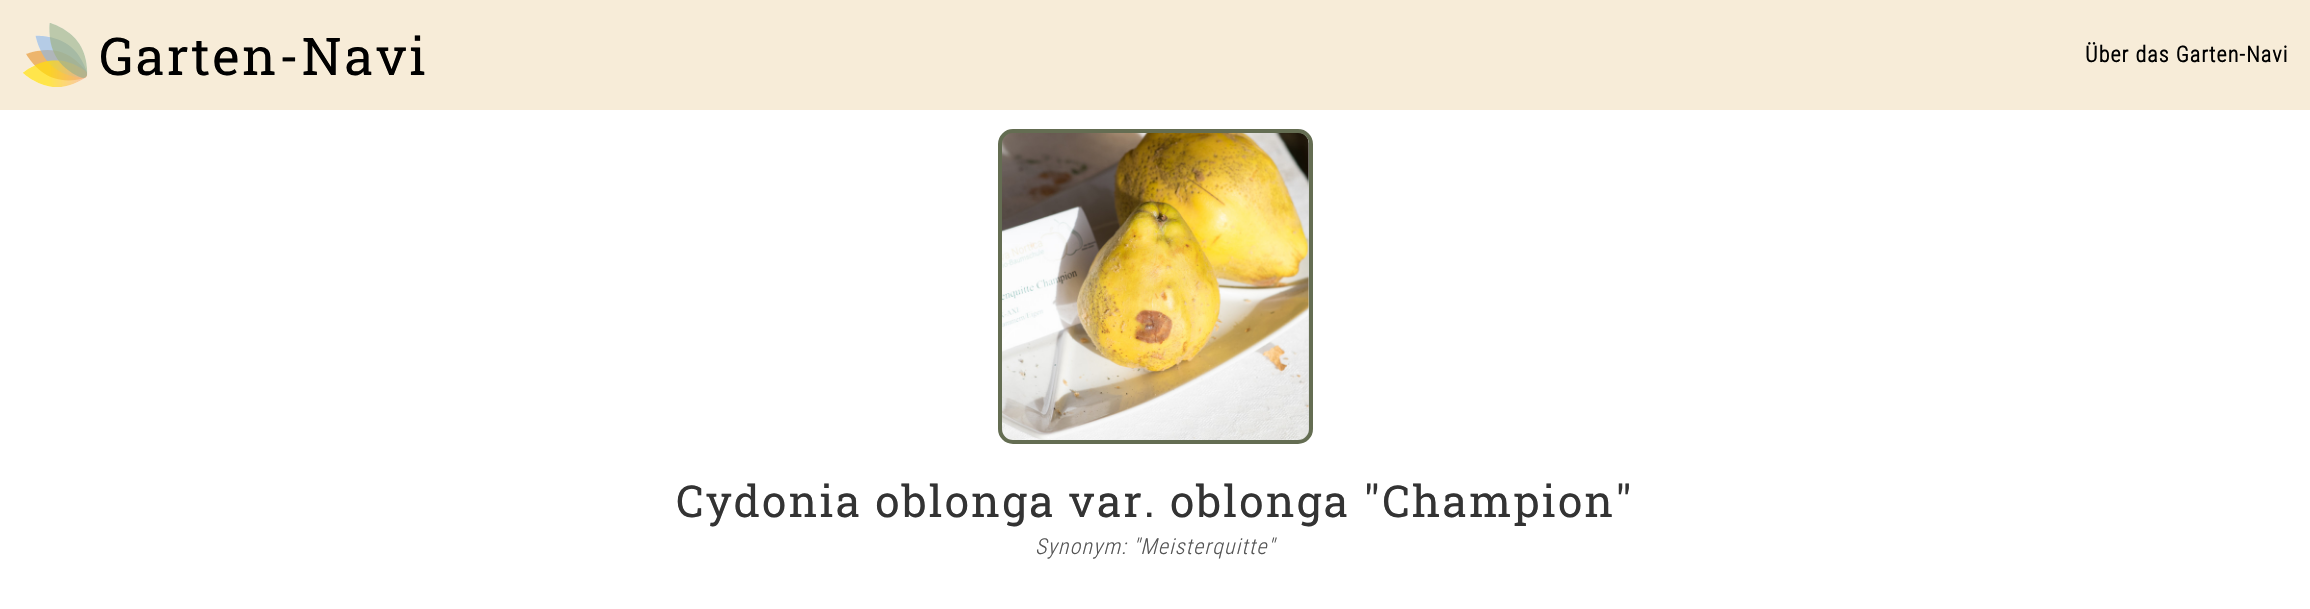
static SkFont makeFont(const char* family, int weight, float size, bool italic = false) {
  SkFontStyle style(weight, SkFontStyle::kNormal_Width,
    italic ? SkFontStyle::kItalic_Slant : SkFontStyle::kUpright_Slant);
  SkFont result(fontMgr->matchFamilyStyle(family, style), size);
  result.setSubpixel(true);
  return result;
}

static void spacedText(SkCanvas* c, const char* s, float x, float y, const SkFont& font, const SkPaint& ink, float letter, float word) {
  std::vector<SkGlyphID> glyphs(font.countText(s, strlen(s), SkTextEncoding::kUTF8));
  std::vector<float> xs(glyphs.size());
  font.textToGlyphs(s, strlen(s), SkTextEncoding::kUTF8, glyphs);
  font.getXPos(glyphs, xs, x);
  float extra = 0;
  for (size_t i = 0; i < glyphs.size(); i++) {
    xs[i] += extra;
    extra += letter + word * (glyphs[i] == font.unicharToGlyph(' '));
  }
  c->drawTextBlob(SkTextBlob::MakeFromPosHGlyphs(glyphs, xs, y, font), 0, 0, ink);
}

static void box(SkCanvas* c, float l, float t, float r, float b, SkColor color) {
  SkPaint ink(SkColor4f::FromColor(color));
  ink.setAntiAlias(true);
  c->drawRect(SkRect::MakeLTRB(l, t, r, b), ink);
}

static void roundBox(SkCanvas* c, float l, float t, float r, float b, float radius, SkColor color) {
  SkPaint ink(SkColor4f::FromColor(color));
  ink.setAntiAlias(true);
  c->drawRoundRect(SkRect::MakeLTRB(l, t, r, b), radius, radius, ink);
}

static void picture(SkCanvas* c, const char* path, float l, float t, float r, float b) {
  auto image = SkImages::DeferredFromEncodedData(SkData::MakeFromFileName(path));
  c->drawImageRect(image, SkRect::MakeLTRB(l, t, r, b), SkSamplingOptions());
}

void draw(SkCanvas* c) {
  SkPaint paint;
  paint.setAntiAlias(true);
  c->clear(0xffffffff);
  box(c, 0, 0, 2310, 110, 0xfff7ecd8);
  picture(c, "img_01.png", 23, 23, 88, 87);
  SkFont face1 = makeFont("Roboto Slab", 400, 52);
  paint.setColor(0xff000000);
  spacedText(c, "Garten-Navi", 99, 75, face1, paint, 2.6f, 0);
  SkFont face2 = makeFont("Roboto Condensed", 700, 22);
  spacedText(c, "Über das Garten-Navi", 2085, 62, face2, paint, 1.1f, 0);
  roundBox(c, 1001, 133, 1309, 440, 11, 0xffd3d3d3);
  picture(c, "img_02.png", 1002, 133, 1309, 440);
  paint.setStyle(SkPaint::kStroke_Style);
  paint.setStrokeWidth(4);
  paint.setColor(0xff646d52);
  c->drawRoundRect(SkRect::MakeLTRB(1000, 131, 1311, 442), 13, 13, paint);
  SkFont face3 = makeFont("Roboto Slab", 400, 44);
  paint.setStyle(SkPaint::kFill_Style);
  paint.setColor(0xff333333);
  spacedText(c, "Cydonia oblonga var. oblonga \"Champion\"", 676, 517, face3, paint, 2.2f, 0);
  SkFont face4 = makeFont("Roboto Condensed", 300, 22, true);
  paint.setColor(0xff555555);
  spacedText(c, "Synonym: \"Meisterquitte\"", 1035, 554, face4, paint, 1.1f, 0);
}
